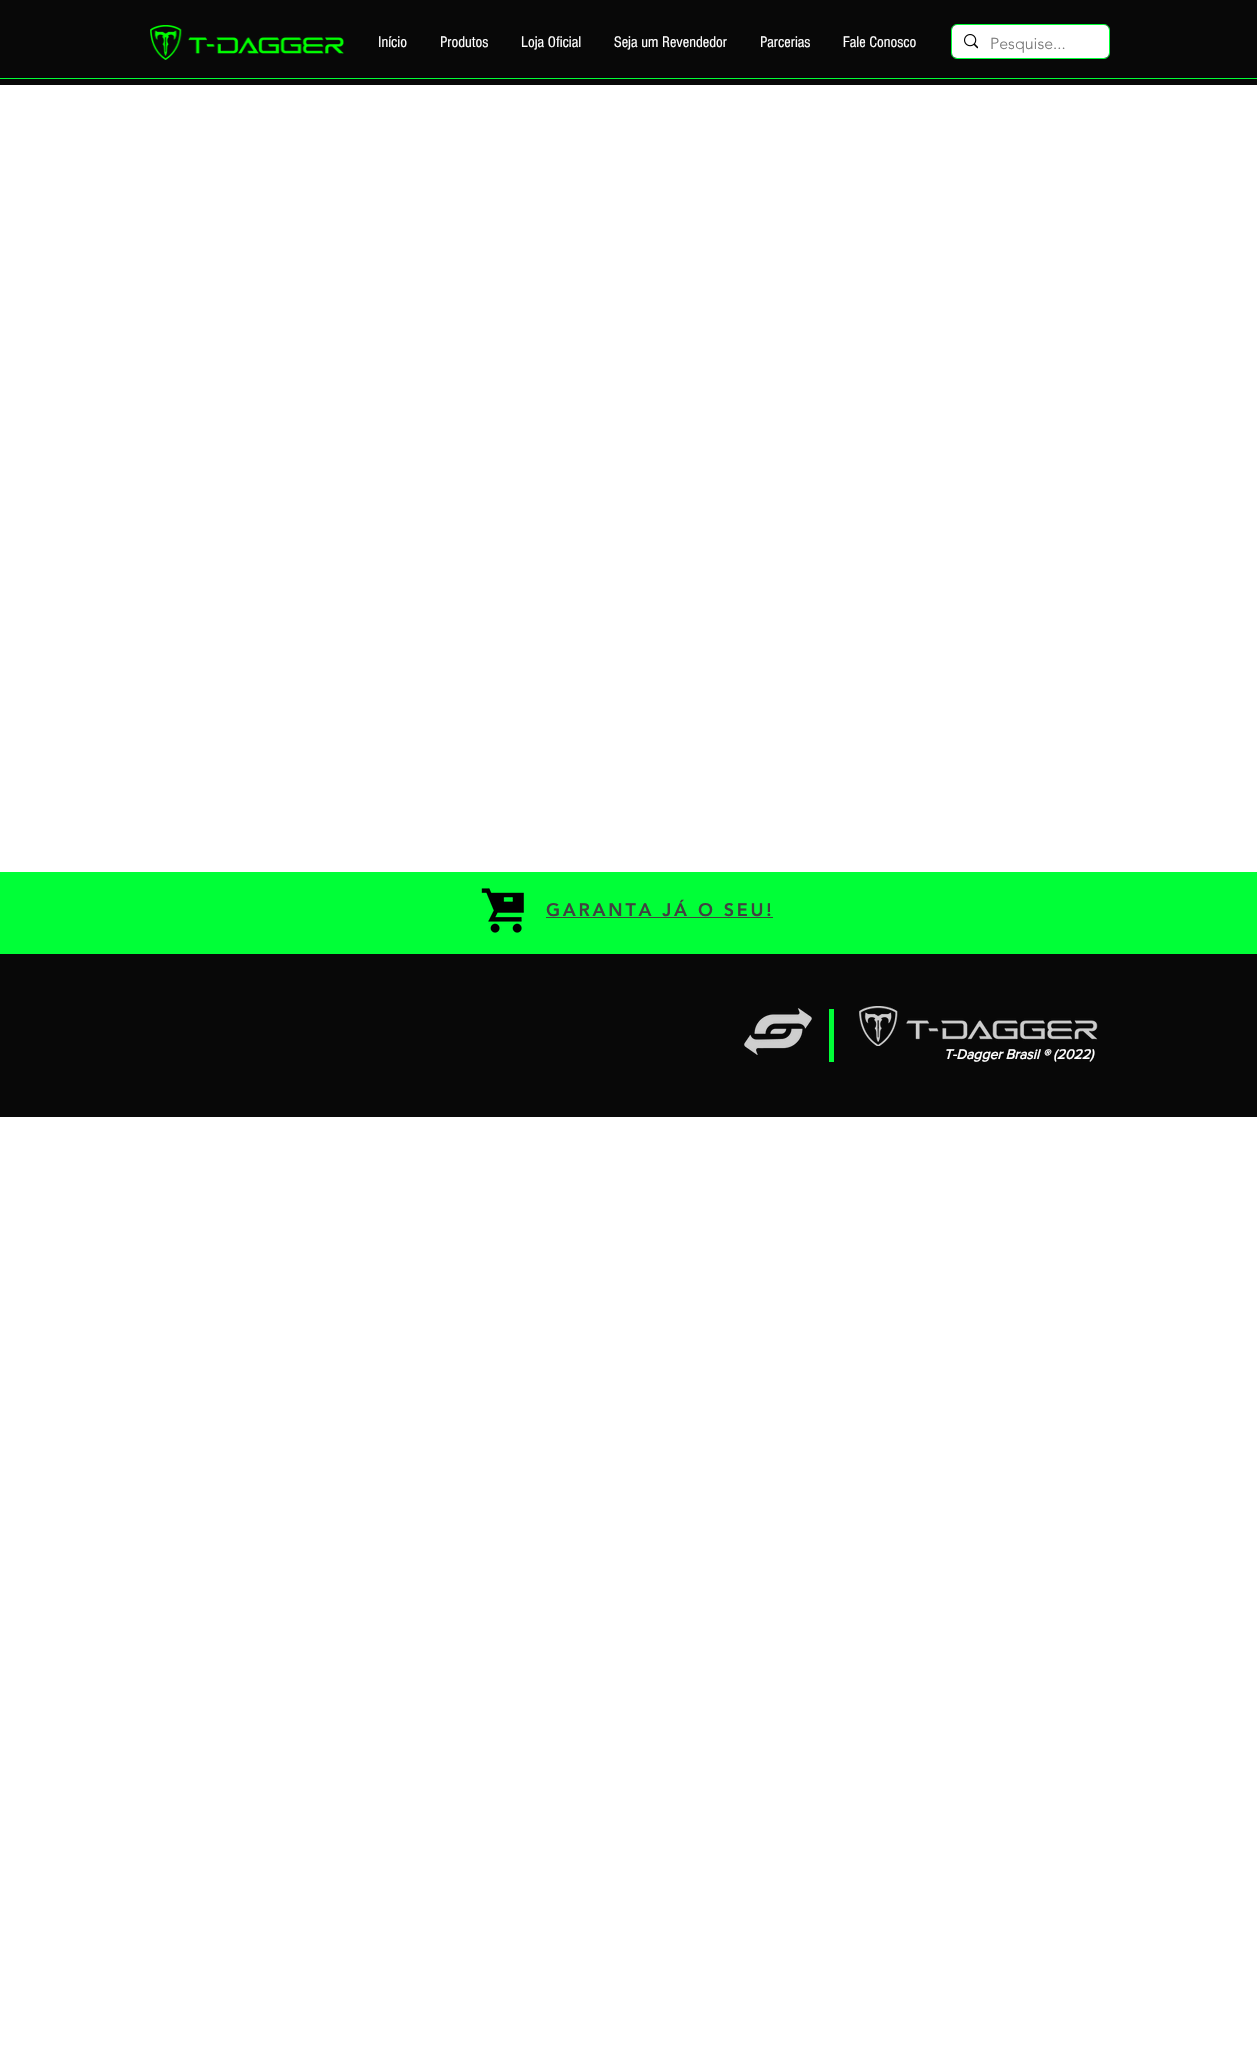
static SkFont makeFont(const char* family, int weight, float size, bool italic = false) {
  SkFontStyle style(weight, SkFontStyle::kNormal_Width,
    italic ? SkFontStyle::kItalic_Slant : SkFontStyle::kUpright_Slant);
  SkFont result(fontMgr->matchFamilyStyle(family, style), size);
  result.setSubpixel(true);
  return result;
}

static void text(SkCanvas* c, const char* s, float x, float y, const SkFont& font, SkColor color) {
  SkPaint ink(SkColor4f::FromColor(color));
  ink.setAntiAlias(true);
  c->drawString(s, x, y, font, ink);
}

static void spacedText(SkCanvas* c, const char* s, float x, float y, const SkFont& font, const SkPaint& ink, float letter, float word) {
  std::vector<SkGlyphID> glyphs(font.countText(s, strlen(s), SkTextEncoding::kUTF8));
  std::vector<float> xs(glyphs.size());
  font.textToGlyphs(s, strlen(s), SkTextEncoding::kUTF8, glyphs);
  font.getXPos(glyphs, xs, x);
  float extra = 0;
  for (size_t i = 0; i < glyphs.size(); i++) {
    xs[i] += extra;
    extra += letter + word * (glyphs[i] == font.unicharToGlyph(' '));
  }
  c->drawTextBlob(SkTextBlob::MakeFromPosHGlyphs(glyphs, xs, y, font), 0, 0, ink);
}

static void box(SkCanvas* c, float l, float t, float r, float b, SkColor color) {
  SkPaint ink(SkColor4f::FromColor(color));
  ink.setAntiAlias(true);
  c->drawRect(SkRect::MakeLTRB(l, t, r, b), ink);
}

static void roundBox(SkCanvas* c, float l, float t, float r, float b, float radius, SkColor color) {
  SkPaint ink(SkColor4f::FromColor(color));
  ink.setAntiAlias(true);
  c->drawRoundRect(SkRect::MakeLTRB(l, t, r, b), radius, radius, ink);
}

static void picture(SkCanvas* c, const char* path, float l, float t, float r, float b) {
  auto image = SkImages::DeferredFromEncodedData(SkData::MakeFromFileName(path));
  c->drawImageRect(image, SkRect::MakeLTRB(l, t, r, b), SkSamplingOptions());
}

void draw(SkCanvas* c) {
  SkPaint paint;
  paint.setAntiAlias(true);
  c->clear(0xffffffff);
  box(c, 0, 0, 1257, 85, 0xff080808);
  picture(c, "img_01.png", 150, 25, 344, 60);
  SkFont face1 = makeFont("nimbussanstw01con", 400, 16);
  text(c, "Início", 378, 47, face1, 0xffffffff);
  text(c, "Produtos", 440, 47, face1, 0xffffffff);
  text(c, "Loja Oficial", 521, 47, face1, 0xffffffff);
  text(c, "Seja um Revendedor", 614, 47, face1, 0xffffffff);
  text(c, "Parcerias", 760, 47, face1, 0xffffffff);
  text(c, "Fale Conosco", 843, 47, face1, 0xffffffff);
  paint.setStyle(SkPaint::kStroke_Style);
  paint.setStrokeWidth(1);
  paint.setColor(0xff00ff37);
  c->drawRoundRect(SkRect::MakeLTRB(951.5f, 24.5f, 1109.5f, 58.5f), 5.5f, 5.5f, paint);
  roundBox(c, 952, 25, 1109, 58, 5, 0xffffffff);
  picture(c, "img_02.png", 964, 34, 978, 49);
  SkFont face2 = makeFont("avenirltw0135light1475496", 300, 16);
  text(c, "Pesquise...", 990, 49, face2, 0xff787878);
  box(c, 0, 78, 1257, 79, 0xff00ff37);
  box(c, 0, 872, 1257, 954, 0xff00ff37);
  picture(c, "img_03.png", 481, 888, 524, 933);
  SkFont face3 = makeFont("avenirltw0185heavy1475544", 900, 18);
  paint.setStyle(SkPaint::kFill_Style);
  paint.setColor(0xff414141);
  spacedText(c, "GARANTA JÁ O SEU!", 546, 916, face3, paint, 2.75f, 0);
  box(c, 546, 917, 773, 918, 0xff414141);
  box(c, 0, 954, 1257, 1117, 0xff080808);
  picture(c, "img_04.png", 744, 1008, 812, 1055);
  box(c, 829, 1009, 834, 1062, 0xff00ff37);
  picture(c, "img_05.png", 859, 1006, 1098, 1046);
  SkFont face4 = makeFont("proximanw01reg", 700, 14, true);
  text(c, "T-Dagger Brasil ® (2022)", 944, 1059, face4, 0xffffffff);
}
